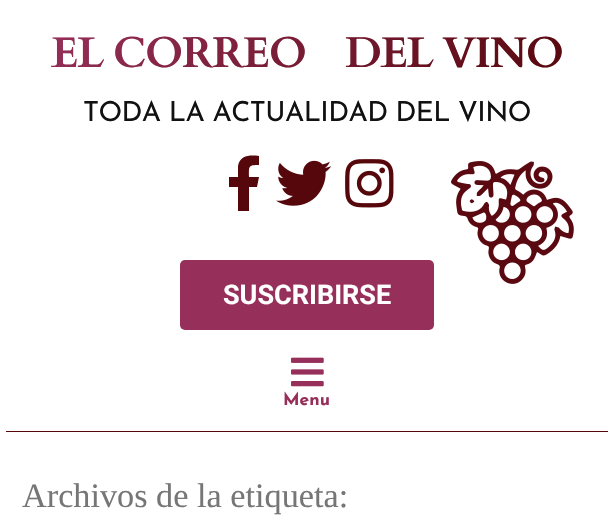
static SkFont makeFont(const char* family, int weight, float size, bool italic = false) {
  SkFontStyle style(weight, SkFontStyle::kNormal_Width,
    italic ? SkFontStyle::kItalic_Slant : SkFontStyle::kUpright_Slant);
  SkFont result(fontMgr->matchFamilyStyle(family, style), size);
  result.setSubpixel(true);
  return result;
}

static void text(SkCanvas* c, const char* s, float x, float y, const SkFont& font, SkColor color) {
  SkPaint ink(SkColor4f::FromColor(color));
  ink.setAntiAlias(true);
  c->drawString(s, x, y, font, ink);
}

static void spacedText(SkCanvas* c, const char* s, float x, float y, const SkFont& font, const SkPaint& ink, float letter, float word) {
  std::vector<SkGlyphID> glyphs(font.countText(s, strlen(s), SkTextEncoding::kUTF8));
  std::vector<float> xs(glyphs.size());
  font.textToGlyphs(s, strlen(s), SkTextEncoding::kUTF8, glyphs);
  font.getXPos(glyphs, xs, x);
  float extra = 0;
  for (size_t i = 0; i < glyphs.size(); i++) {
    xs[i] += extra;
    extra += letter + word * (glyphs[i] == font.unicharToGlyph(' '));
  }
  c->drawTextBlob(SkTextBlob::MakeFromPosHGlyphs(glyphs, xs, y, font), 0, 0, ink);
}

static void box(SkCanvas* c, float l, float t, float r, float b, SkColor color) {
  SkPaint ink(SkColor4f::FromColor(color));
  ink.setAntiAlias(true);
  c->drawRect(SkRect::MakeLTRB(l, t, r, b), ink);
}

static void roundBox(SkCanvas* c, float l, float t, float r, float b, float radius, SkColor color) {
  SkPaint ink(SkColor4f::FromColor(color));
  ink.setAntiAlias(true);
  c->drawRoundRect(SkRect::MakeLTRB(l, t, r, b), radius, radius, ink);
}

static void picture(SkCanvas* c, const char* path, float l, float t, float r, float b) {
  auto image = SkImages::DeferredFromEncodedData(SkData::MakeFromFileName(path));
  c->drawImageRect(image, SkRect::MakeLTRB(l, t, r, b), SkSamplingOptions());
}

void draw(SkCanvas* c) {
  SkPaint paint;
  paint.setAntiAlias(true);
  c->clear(0xffffffff);
  box(c, 6, 431, 608, 432, 0xff56070c);
  SkFont face1 = makeFont("Cardo", 700, 43);
  {
    const SkColor colors[] = {0xff96305a, 0xff56070c};
    const float stops[] = {0, 1};
    const SkPoint ends[] = {{166, -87}, {448, 195}};
    paint.setShader(SkGradientShader::MakeLinear(ends, colors, stops, 2, SkTileMode::kClamp));
    paint.setAlpha(255);
  }
  spacedText(c, "EL CORREO", 51, 67, face1, paint, -1.4f, 0);
  spacedText(c, "DEL VINO", 345, 67, face1, paint, -1.4f, 0);
  SkFont face2 = makeFont("Josefin Sans", 400, 27.6f);
  paint.setShader(nullptr);
  paint.setColor(0xff111111);
  spacedText(c, "TODA LA ACTUALIDAD DEL VINO", 83, 121, face2, paint, -0.55f, 0);
  paint.setColor(0xff56070c);
  c->drawPath(SkPathBuilder().moveTo(257, 187).lineTo(249, 187).lineTo(249, 211).lineTo(238, 211).lineTo(238, 187).lineTo(229, 187).lineTo(229, 177).lineTo(238, 177).lineTo(238, 166).cubicTo(240, 155, 250, 155, 259, 156).lineTo(259, 165).cubicTo(248, 165, 249, 166, 249, 177).lineTo(259, 177).close().detach(), paint);
  picture(c, "img_01.png", 276, 160, 332, 206);
  picture(c, "img_02.png", 345, 159, 394, 208);
  picture(c, "img_03.png", 451, 161, 574, 284);
  roundBox(c, 180, 260, 434, 330, 5, 0xff96305a);
  SkFont face3 = makeFont("Roboto", 700, 27);
  text(c, "SUSCRIBIRSE", 223, 304, face3, 0xffffffff);
  picture(c, "img_04.png", 291, 357, 324, 387);
  SkFont face4 = makeFont("Josefin Sans", 700, 17.5f);
  text(c, "Menu", 283, 405, face4, 0xff96305a);
  SkFont face5 = makeFont("Liberation Serif", 400, 34.25f);
  text(c, "Archivos de la etiqueta:", 22, 507, face5, 0xff767676);
}
